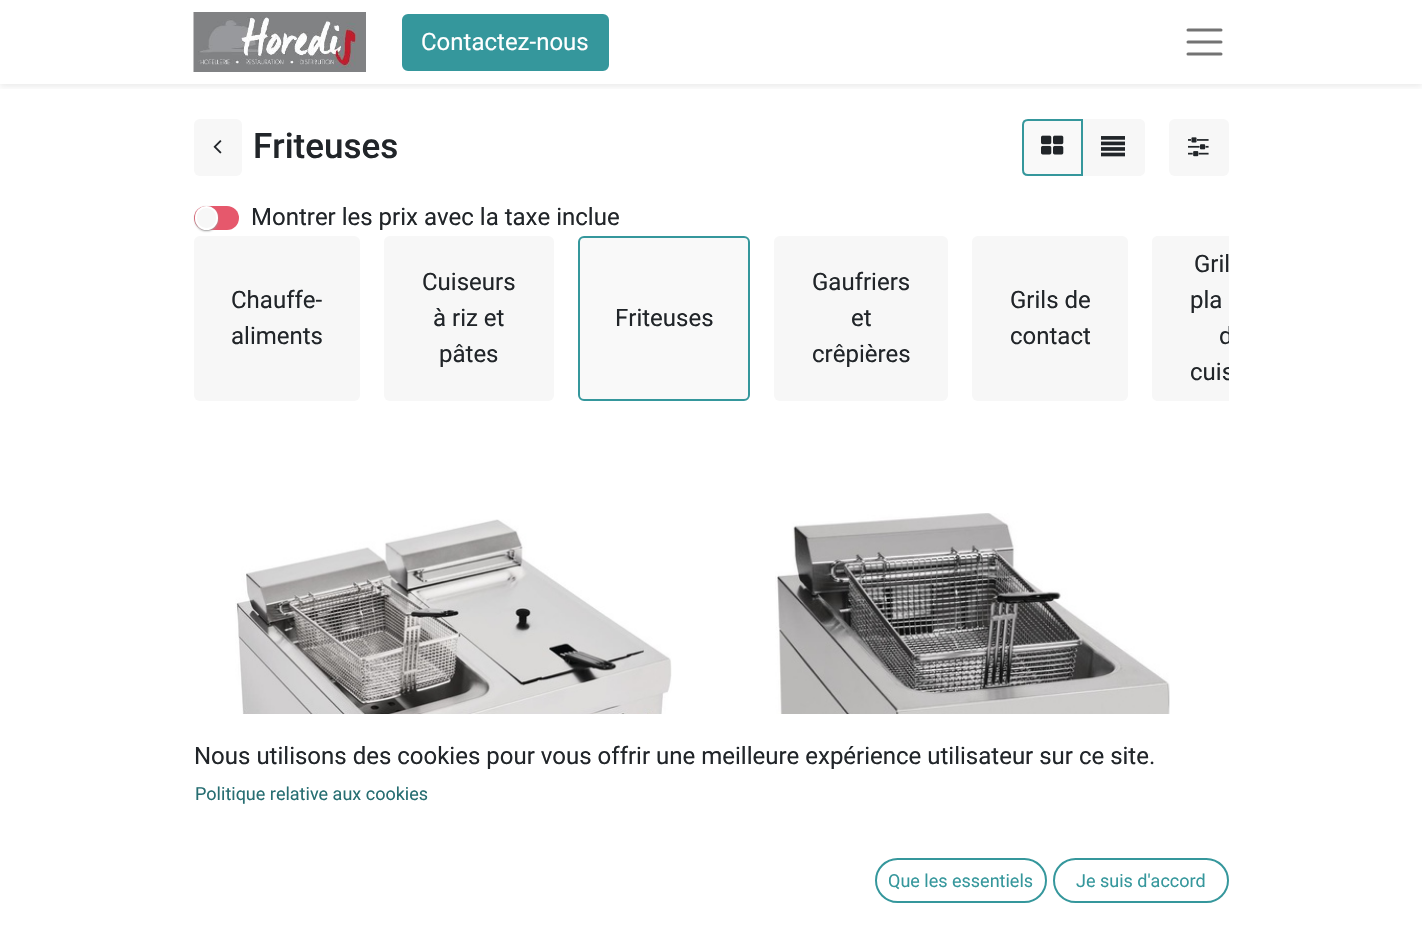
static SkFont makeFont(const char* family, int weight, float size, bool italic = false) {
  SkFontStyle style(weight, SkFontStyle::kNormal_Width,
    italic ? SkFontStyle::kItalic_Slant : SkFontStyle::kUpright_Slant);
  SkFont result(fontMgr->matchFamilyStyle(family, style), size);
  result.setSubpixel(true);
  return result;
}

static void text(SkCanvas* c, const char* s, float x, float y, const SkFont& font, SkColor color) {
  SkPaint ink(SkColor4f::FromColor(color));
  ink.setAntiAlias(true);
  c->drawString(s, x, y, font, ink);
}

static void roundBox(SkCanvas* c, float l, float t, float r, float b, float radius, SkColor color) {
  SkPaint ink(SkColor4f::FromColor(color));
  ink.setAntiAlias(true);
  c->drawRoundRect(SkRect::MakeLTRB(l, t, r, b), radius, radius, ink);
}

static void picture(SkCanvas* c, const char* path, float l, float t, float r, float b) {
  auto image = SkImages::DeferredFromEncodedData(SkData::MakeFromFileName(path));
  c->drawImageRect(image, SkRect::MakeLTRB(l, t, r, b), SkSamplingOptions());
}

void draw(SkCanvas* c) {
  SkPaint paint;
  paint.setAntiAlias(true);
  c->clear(0xffffffff);
  c->save();
  c->clipRect(SkRect::MakeLTRB(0, 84, 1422, 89));
  paint.setColor(0x12000000);
  paint.setMaskFilter(SkMaskFilter::MakeBlur(kNormal_SkBlurStyle, 3));
  c->drawRect(SkRect::MakeLTRB(0, 3, 1422, 87), paint);
  paint.setMaskFilter(nullptr);
  c->restore();
  picture(c, "img_01.png", 193, 12, 366, 72);
  paint.setColor(0xff35979c);
  c->drawRoundRect(SkRect::MakeLTRB(403, 15, 608, 70), 5, 5, paint);
  paint.setStyle(SkPaint::kStroke_Style);
  paint.setStrokeWidth(2);
  c->drawRoundRect(SkRect::MakeLTRB(403, 15, 608, 70), 5, 5, paint);
  SkFont face1 = makeFont("Roboto", 400, 24);
  text(c, "Contactez-nous", 421, 50, face1, 0xffffffff);
  paint.setStrokeWidth(3);
  paint.setStrokeCap(SkPaint::kRound_Cap);
  paint.setColor(0xff737373);
  c->drawPath(SkPathBuilder().moveTo(1188, 30).lineTo(1221, 30).moveTo(1188, 42).lineTo(1221, 42).moveTo(1188, 54).lineTo(1221, 54).detach(), paint);
  roundBox(c, 194, 119, 242, 176, 6, 0xfff7f7f7);
  picture(c, "img_02.png", 213, 140, 222, 154);
  SkFont face2 = makeFont("Roboto", 500, 35);
  text(c, "Friteuses", 253, 158, face2, 0xff212529);
  paint.setStyle(SkPaint::kFill_Style);
  paint.setColor(0xfff7f7f7);
  c->drawPath(SkPathBuilder().moveTo(1082, 119).lineTo(1139, 119).cubicTo(1142.5f, 119, 1145, 121.5f, 1145, 125).lineTo(1145, 170).cubicTo(1145, 173.5f, 1142.5f, 176, 1139, 176).lineTo(1082, 176).close().detach(), paint);
  paint.setColor(0xfff9f9f9);
  c->drawPath(SkPathBuilder().moveTo(1028, 120).lineTo(1082, 120).lineTo(1082, 175).lineTo(1028, 175).cubicTo(1025, 175, 1023, 173, 1023, 170).lineTo(1023, 125).cubicTo(1023, 122, 1025, 120, 1028, 120).close().detach(), paint);
  paint.setStyle(SkPaint::kStroke_Style);
  paint.setStrokeWidth(2);
  paint.setStrokeCap(SkPaint::kButt_Cap);
  paint.setColor(0xff35979c);
  c->drawPath(SkPathBuilder().moveTo(1028, 120).lineTo(1082, 120).lineTo(1082, 175).lineTo(1028, 175).cubicTo(1025, 175, 1023, 173, 1023, 170).lineTo(1023, 125).cubicTo(1023, 122, 1025, 120, 1028, 120).close().detach(), paint);
  picture(c, "img_03.png", 1041, 135, 1064, 155);
  picture(c, "img_04.png", 1101, 136, 1125, 157);
  roundBox(c, 1169, 119, 1229, 176, 6, 0xfff7f7f7);
  picture(c, "img_05.png", 1188, 137, 1209, 157);
  roundBox(c, 194, 206, 239, 230, 12, 0xffe6586c);
  paint.setStyle(SkPaint::kFill_Style);
  paint.setColor(0xff9e9e9e);
  paint.setMaskFilter(SkMaskFilter::MakeBlur(kNormal_SkBlurStyle, 1));
  c->drawRoundRect(SkRect::MakeLTRB(195, 207, 218, 231), 11.5f, 11.5f, paint);
  paint.setMaskFilter(nullptr);
  paint.setColor(0xfff7f7f7);
  c->drawRoundRect(SkRect::MakeLTRB(196, 207, 217, 229), 10.5f, 10.5f, paint);
  paint.setStyle(SkPaint::kStroke_Style);
  paint.setColor(0xffffffff);
  c->drawRoundRect(SkRect::MakeLTRB(196, 207, 217, 229), 10.5f, 10.5f, paint);
  text(c, "Montrer les prix avec la taxe inclue", 251, 225, face1, 0xff212529);
  roundBox(c, 194, 236, 360, 401, 6, 0xfff7f7f7);
  text(c, "Chauffe-", 231, 308, face1, 0xff212529);
  text(c, "aliments", 231, 344, face1, 0xff212529);
  roundBox(c, 384, 236, 554, 401, 6, 0xfff7f7f7);
  text(c, "Cuiseurs", 422, 290, face1, 0xff212529);
  text(c, "à riz et", 433, 326, face1, 0xff212529);
  text(c, "pâtes", 439, 362, face1, 0xff212529);
  paint.setStyle(SkPaint::kFill_Style);
  paint.setColor(0xfff9f9f9);
  c->drawRoundRect(SkRect::MakeLTRB(579, 237, 749, 400), 5, 5, paint);
  paint.setStyle(SkPaint::kStroke_Style);
  paint.setColor(0xff35979c);
  c->drawRoundRect(SkRect::MakeLTRB(579, 237, 749, 400), 5, 5, paint);
  text(c, "Friteuses", 615, 326, face1, 0xff212529);
  roundBox(c, 774, 236, 948, 401, 6, 0xfff7f7f7);
  text(c, "Gaufriers", 812, 290, face1, 0xff212529);
  text(c, "et", 851, 326, face1, 0xff212529);
  text(c, "crêpières", 812, 362, face1, 0xff212529);
  roundBox(c, 972, 236, 1128, 401, 6, 0xfff7f7f7);
  text(c, "Grils de", 1010, 308, face1, 0xff212529);
  text(c, "contact", 1010, 344, face1, 0xff212529);
  paint.setStyle(SkPaint::kFill_Style);
  paint.setColor(0xfff7f7f7);
  c->drawPath(SkPathBuilder().moveTo(1158, 236).lineTo(1229, 236).lineTo(1229, 401).lineTo(1158, 401).cubicTo(1154.5f, 401, 1152, 398.5f, 1152, 395).lineTo(1152, 242).cubicTo(1152, 238.5f, 1154.5f, 236, 1158, 236).close().detach(), paint);
  text(c, "Gril", 1194, 272, face1, 0xff212529);
  text(c, "pla", 1190, 308, face1, 0xff212529);
  c->save();
  c->clipRect(SkRect::MakeLTRB(194, 236, 1229, 407));
  text(c, "d", 1219, 344, face1, 0xff212529);
  text(c, "cuis", 1190, 380, face1, 0xff212529);
  c->restore();
  picture(c, "img_06.png", 235, 519, 672, 714);
  picture(c, "img_07.png", 775, 513, 1170, 714);
  text(c, "Nous utilisons des cookies pour vous offrir une meilleure expérience utilisateur sur ce site.", 194, 764, face1, 0xff212529);
  SkFont face3 = makeFont("Roboto", 400, 18);
  text(c, "Politique relative aux cookies", 195, 800, face3, 0xff276e72);
  paint.setStyle(SkPaint::kStroke_Style);
  paint.setColor(0xff35979c);
  c->drawRoundRect(SkRect::MakeLTRB(876, 859, 1046, 902), 21.5f, 21.5f, paint);
  text(c, "Que les essentiels", 888, 887, face3, 0xff35979c);
  c->drawRoundRect(SkRect::MakeLTRB(1054, 859, 1228, 902), 21.5f, 21.5f, paint);
  text(c, "Je suis d'accord", 1076, 887, face3, 0xff35979c);
}
